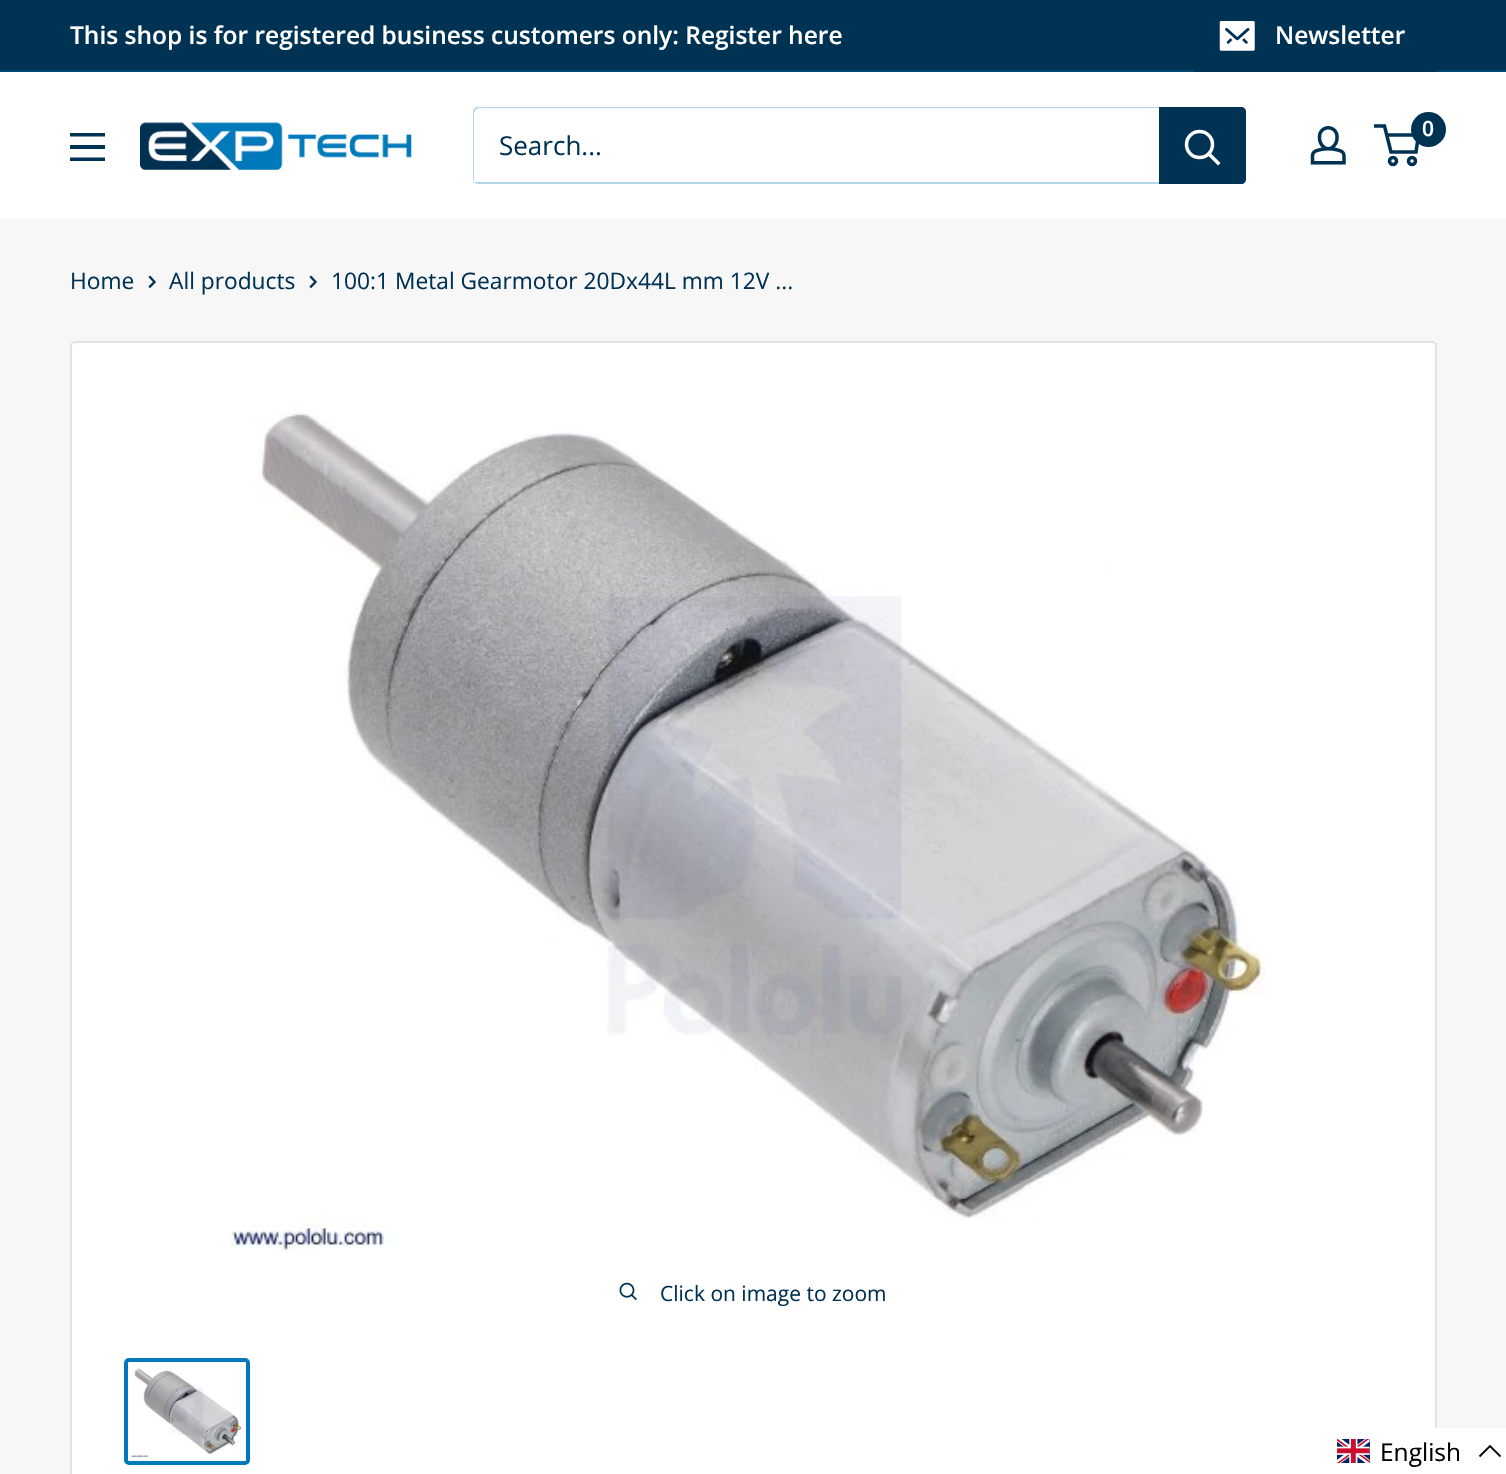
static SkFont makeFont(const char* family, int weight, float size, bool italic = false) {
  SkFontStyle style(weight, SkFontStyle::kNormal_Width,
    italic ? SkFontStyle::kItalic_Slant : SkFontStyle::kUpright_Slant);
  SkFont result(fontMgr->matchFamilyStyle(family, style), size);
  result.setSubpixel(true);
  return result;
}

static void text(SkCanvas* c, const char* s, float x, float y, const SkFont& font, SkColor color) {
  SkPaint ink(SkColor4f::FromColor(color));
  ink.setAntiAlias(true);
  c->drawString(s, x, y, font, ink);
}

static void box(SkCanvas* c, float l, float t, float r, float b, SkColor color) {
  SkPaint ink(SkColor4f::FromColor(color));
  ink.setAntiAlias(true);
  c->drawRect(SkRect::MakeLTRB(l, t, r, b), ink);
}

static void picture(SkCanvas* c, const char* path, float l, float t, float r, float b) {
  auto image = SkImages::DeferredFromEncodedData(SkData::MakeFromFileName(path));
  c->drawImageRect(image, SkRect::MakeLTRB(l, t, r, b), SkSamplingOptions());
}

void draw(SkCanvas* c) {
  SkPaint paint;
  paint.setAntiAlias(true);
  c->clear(0xfff7f7f7);
  box(c, 0, 0, 1506, 70, 0xff003254);
  box(c, 0, 70, 1506, 72, 0xff004773);
  SkFont face1 = makeFont("Open Sans", 600, 24.5f);
  text(c, "This shop is for registered business customers only: Register here", 70, 44, face1, 0xffffffff);
  paint.setColor(0xff003254);
  c->drawPath(SkPathBuilder().moveTo(1194, 70).lineTo(1194, 72).lineTo(1437, 72).lineTo(1437, 2).lineTo(1437, 70).close().detach(), paint);
  picture(c, "img_01.png", 1219, 21, 1255, 51);
  text(c, "Newsletter", 1275, 44, face1, 0xffffffff);
  box(c, 0, 72, 1506, 219, 0xffffffff);
  c->drawPath(SkPathBuilder(SkPathFillType::kEvenOdd).moveTo(70, 157.5f).lineTo(105, 157.5f).lineTo(105, 161).lineTo(70, 161).close().moveTo(70, 133).lineTo(105, 133).lineTo(105, 136.5f).lineTo(70, 136.5f).close().moveTo(70, 145).lineTo(105, 145).lineTo(105, 149).lineTo(70, 149).close().detach(), paint);
  picture(c, "img_02.png", 140, 122, 412, 170);
  paint.setColor(0xffb3d7ea);
  c->drawPath(SkPathBuilder().moveTo(474, 182).cubicTo(475, 183, 476, 184, 478, 184).lineTo(1241, 184).cubicTo(1244, 184, 1246, 182, 1246, 179).lineTo(1246, 112).cubicTo(1246, 110, 1245, 109, 1244, 108).lineTo(1244, 110).lineTo(1244, 177).cubicTo(1244, 180, 1242, 182, 1239, 182).lineTo(476, 182).close().detach(), paint);
  c->drawPath(SkPathBuilder().moveTo(480, 108).lineTo(1242, 108).lineTo(1245, 109).cubicTo(1244, 108, 1243, 107, 1241, 107).lineTo(478, 107).cubicTo(475, 107, 473, 109, 473, 112).lineTo(473, 179).cubicTo(473, 181, 474, 182, 475, 183).lineTo(474, 180).lineTo(474, 114).cubicTo(474, 111, 477, 108, 480, 108).close().detach(), paint);
  SkFont face2 = makeFont("Open Sans", 400, 26);
  text(c, "Search...", 499, 155, face2, 0xff003254);
  paint.setColor(0xff003254);
  c->drawPath(SkPathBuilder().moveTo(1159, 107).lineTo(1241, 107).cubicTo(1244, 107, 1246, 109, 1246, 112).lineTo(1246, 179).cubicTo(1246, 182, 1244, 184, 1241, 184).lineTo(1159, 184).close().detach(), paint);
  paint.setStyle(SkPaint::kStroke_Style);
  paint.setStrokeWidth(3.5f);
  paint.setStrokeCap(SkPaint::kSquare_Cap);
  paint.setColor(0xffffffff);
  c->drawPath(SkPathBuilder().moveTo(1218, 163).lineTo(1209, 154).detach(), paint);
  paint.setStrokeCap(SkPaint::kButt_Cap);
  c->drawCircle(1199.5f, 144.5f, 13, paint);
  picture(c, "img_03.png", 1310, 126, 1346, 165);
  paint.setColor(0xff003254);
  c->drawCircle(1393, 161, 3.5f, paint);
  c->drawCircle(1412, 161, 3.5f, paint);
  c->drawPath(SkPathBuilder().moveTo(1386.5f, 135).lineTo(1418.5f, 135).lineTo(1416, 152).lineTo(1391, 152).lineTo(1384.5f, 126).lineTo(1374, 126).detach(), paint);
  paint.setStyle(SkPaint::kFill_Style);
  c->drawCircle(1428.5f, 129.5f, 17.5f, paint);
  SkFont face3 = makeFont("Open Sans", 600, 21);
  text(c, "0", 1422, 136, face3, 0xffffffff);
  SkFont face4 = makeFont("Open Sans", 400, 22.75f);
  text(c, "Home", 70, 289, face4, 0xff003254);
  paint.setStyle(SkPaint::kStroke_Style);
  paint.setStrokeWidth(2.3f);
  paint.setStrokeCap(SkPaint::kSquare_Cap);
  c->drawPath(SkPathBuilder().moveTo(150, 277).lineTo(154.5f, 282).lineTo(150, 286.5f).detach(), paint);
  text(c, "All products", 169, 289, face4, 0xff003254);
  c->drawPath(SkPathBuilder().moveTo(311, 277).lineTo(315.5f, 282).lineTo(311, 286.5f).detach(), paint);
  text(c, "100:1 Metal Gearmotor 20Dx44L mm 12V ...", 331, 289, face4, 0xff003254);
  paint.setStyle(SkPaint::kFill_Style);
  paint.setColor(0xffffffff);
  c->drawRoundRect(SkRect::MakeLTRB(71, 342, 1436, 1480), 4, 4, paint);
  paint.setStyle(SkPaint::kStroke_Style);
  paint.setStrokeWidth(2);
  paint.setStrokeCap(SkPaint::kButt_Cap);
  paint.setColor(0xffe1e3e4);
  c->drawRoundRect(SkRect::MakeLTRB(71, 342, 1436, 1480), 4, 4, paint);
  picture(c, "img_04.png", 229, 406, 1266, 1253);
  picture(c, "img_05.png", 619, 1282, 637, 1301);
  SkFont face5 = makeFont("Open Sans", 400, 21);
  text(c, "Click on image to zoom", 660, 1301, face5, 0xff003254);
  paint.setStrokeWidth(4);
  paint.setColor(0xff0079ba);
  c->drawRoundRect(SkRect::MakeLTRB(126, 1360, 248, 1463), 3, 3, paint);
  picture(c, "img_06.png", 131, 1368, 242, 1458);
  box(c, 1435, 1428, 1506, 1474, 0xffffffff);
  picture(c, "img_07.png", 1337, 1439, 1370, 1463);
  SkFont face6 = makeFont("Open Sans", 400, 24.5f);
  text(c, "English", 1380, 1461, face6, 0xff000000);
  paint.setStrokeWidth(1.8f);
  paint.setColor(0xff000000);
  c->drawPath(SkPathBuilder().moveTo(1500.5f, 1456.5f).lineTo(1490, 1446).lineTo(1479.5f, 1456.5f).detach(), paint);
}
